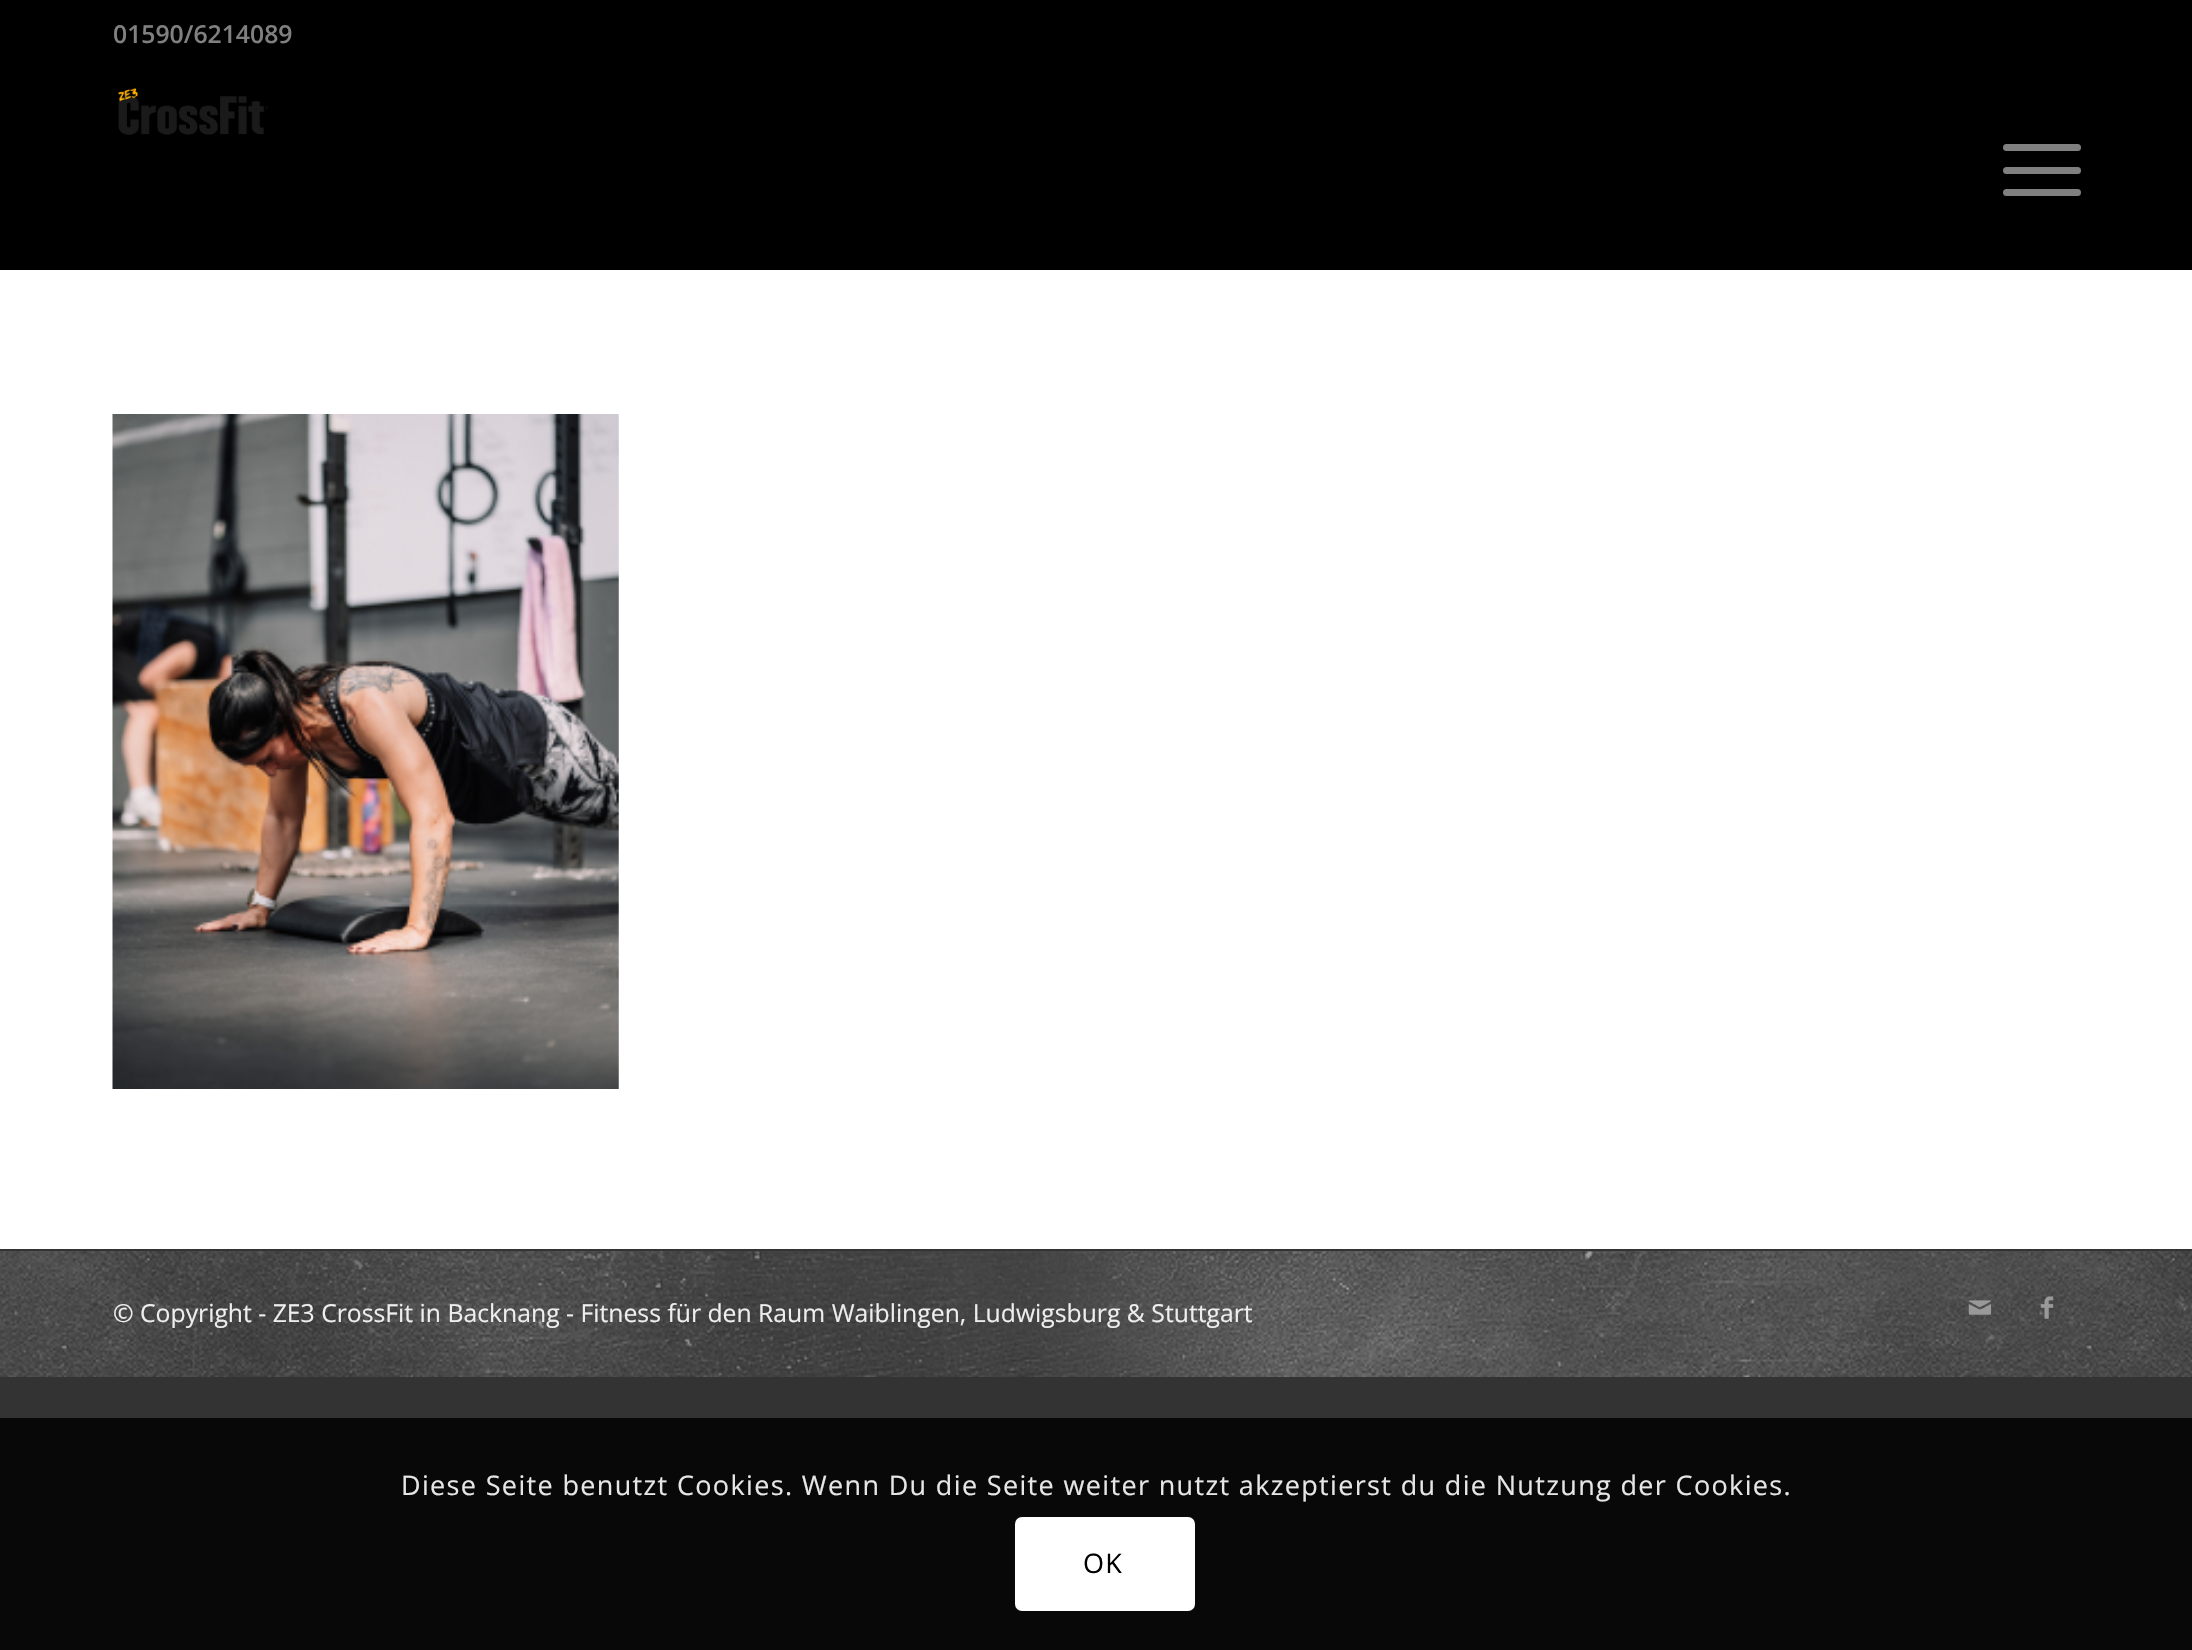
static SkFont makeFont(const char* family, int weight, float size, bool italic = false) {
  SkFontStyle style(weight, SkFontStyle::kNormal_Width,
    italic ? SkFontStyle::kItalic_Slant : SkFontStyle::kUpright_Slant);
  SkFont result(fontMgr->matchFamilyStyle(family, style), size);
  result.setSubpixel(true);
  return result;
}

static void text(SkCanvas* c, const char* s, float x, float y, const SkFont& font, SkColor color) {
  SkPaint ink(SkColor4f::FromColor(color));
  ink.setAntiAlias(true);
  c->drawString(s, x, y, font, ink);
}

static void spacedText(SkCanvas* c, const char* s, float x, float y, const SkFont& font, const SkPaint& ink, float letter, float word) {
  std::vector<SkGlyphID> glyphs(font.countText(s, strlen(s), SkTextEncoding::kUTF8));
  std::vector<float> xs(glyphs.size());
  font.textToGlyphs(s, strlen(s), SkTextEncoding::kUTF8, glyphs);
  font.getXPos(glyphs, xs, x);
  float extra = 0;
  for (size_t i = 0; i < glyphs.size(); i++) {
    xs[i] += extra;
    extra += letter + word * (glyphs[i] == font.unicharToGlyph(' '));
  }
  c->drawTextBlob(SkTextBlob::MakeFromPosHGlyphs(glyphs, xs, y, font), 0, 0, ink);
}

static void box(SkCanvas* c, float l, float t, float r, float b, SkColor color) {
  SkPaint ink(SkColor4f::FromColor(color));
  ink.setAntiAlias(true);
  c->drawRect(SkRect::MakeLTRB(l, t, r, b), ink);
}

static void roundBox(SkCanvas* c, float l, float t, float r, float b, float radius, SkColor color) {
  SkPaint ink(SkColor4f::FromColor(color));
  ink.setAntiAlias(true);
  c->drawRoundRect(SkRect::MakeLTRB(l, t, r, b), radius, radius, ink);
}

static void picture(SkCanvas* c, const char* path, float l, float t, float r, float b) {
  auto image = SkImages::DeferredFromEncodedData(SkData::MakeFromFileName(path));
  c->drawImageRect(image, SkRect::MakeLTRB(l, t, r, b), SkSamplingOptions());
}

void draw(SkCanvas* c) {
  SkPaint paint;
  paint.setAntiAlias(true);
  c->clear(0xff333333);
  box(c, 0, 0, 2192, 270, 0xff000000);
  SkFont face1 = makeFont("Open Sans", 600, 24.75f);
  text(c, "01590/6214089", 113, 43, face1, 0xff808080);
  picture(c, "img_01.png", 118, 88, 268, 135);
  roundBox(c, 2003, 167, 2081, 174, 3.5f, 0xff808080);
  roundBox(c, 2003, 144, 2081, 151, 3.5f, 0xff808080);
  roundBox(c, 2003, 189, 2081, 196, 3.5f, 0xff808080);
  box(c, 0, 270, 2192, 1249, 0xffffffff);
  picture(c, "img_02.png", 112, 414, 619, 1089);
  picture(c, "img_03.png", 0, 1251, 2192, 1377);
  SkFont face2 = makeFont("Open Sans", 400, 24.75f);
  text(c, "© Copyright - ZE3 CrossFit in Backnang - Fitness für den Raum Waiblingen, Ludwigsburg & Stuttgart", 113, 1322, face2, 0xffeeeeee);
  picture(c, "img_04.png", 1968, 1300, 1991, 1315);
  picture(c, "img_05.png", 2040, 1296, 2054, 1319);
  box(c, 0, 1418, 2192, 1650, 0xff080808);
  SkFont face3 = makeFont("Open Sans", 400, 27);
  paint.setColor(0xffe6e6e6);
  spacedText(c, "Diese Seite benutzt Cookies. Wenn Du die Seite weiter nutzt akzeptierst du die Nutzung der Cookies.", 401, 1495, face3, paint, 1.35f, 0);
  roundBox(c, 1015, 1517, 1195, 1611, 7, 0xffffffff);
  paint.setColor(0xff000000);
  spacedText(c, "OK", 1083, 1573, face3, paint, 1.35f, 0);
}
